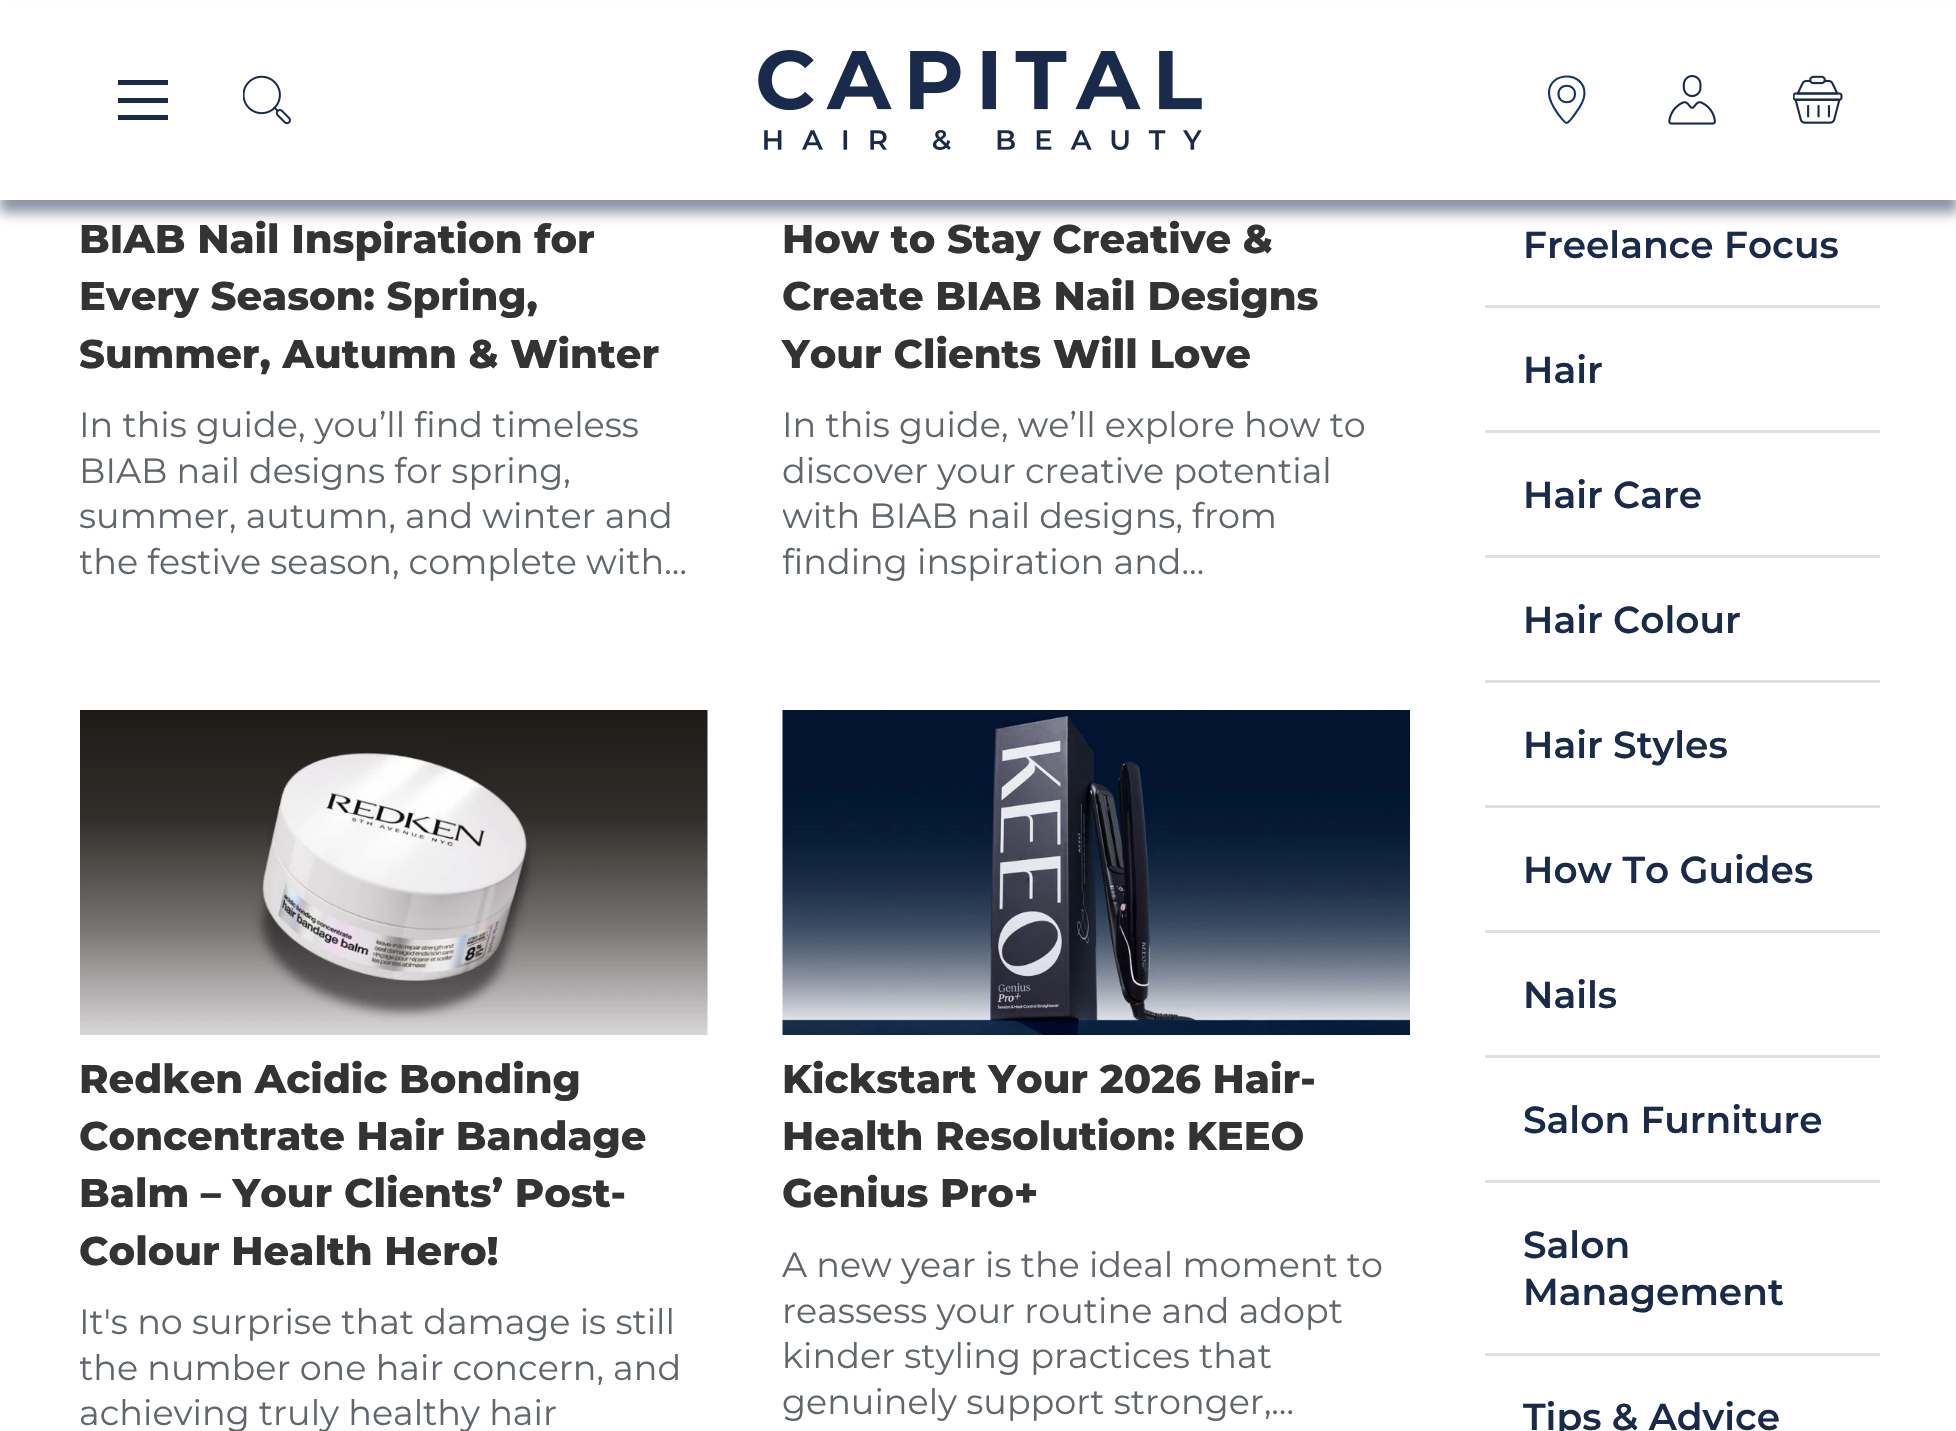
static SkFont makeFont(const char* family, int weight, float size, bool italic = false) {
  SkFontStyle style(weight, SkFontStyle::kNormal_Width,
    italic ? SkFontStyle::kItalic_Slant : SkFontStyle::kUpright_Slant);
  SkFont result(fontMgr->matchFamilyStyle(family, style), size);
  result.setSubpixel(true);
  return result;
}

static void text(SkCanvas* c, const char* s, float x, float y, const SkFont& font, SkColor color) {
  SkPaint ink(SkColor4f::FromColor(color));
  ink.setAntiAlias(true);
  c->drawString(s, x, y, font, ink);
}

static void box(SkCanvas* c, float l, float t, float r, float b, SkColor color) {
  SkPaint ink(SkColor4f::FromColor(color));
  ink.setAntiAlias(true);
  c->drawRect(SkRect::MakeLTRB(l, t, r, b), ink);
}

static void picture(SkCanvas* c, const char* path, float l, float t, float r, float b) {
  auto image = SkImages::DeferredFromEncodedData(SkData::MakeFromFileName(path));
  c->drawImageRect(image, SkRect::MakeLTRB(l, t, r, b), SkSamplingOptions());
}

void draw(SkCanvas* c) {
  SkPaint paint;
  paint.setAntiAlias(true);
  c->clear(0xffffffff);
  paint.setColor(0x801a2a4a);
  paint.setMaskFilter(SkMaskFilter::MakeBlur(kNormal_SkBlurStyle, 6));
  c->drawRect(SkRect::MakeLTRB(0, 13, 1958, 213), paint);
  paint.setMaskFilter(nullptr);
  box(c, 0, 1, 1956, 200, 0xffffffff);
  box(c, 118, 80, 168, 85, 0xff1a2a4a);
  box(c, 118, 98, 168, 103, 0xff1a2a4a);
  box(c, 118, 115, 168, 120, 0xff1a2a4a);
  picture(c, "img_01.png", 243, 75, 291, 125);
  picture(c, "img_02.png", 758, 50, 1202, 150);
  paint.setStyle(SkPaint::kStroke_Style);
  paint.setStrokeWidth(2.1f);
  paint.setStrokeCap(SkPaint::kRound_Cap);
  paint.setStrokeJoin(SkPaint::kRound_Join);
  paint.setColor(0xff163567);
  c->drawPath(SkPathBuilder().moveTo(1584.5f, 93.5f).cubicTo(1584.5f, 101, 1579.5f, 108, 1575, 114).cubicTo(1566.5f, 126, 1567, 126, 1558, 114).cubicTo(1554, 108, 1549, 101, 1549, 93.5f).cubicTo(1548.5f, 71, 1584.5f, 70.5f, 1584.5f, 93.5f).close().moveTo(1575, 94).cubicTo(1575, 105, 1558.5f, 105, 1558.5f, 94).cubicTo(1558.5f, 83, 1575, 83, 1575, 94).close().detach(), paint);
  picture(c, "img_03.png", 1668, 75, 1716, 125);
  picture(c, "img_04.png", 1793, 75, 1843, 124);
  SkFont face1 = makeFont("Montserrat", 800, 40);
  text(c, "BIAB Nail Inspiration for", 79, 253, face1, 0xff333333);
  text(c, "Every Season: Spring,", 79, 310, face1, 0xff333333);
  text(c, "Summer, Autumn & Winter", 79, 368, face1, 0xff333333);
  SkFont face2 = makeFont("Montserrat", 400, 35);
  text(c, "In this guide, you’ll find timeless", 79, 437, face2, 0xff61666c);
  text(c, "BIAB nail designs for spring,", 79, 483, face2, 0xff61666c);
  text(c, "summer, autumn, and winter and", 79, 528, face2, 0xff61666c);
  c->save();
  c->clipRect(SkRect::MakeLTRB(80, 403, 708, 585));
  text(c, "the festive season, complete with…", 79, 574, face2, 0xff61666c);
  c->restore();
  text(c, "How to Stay Creative &", 782, 253, face1, 0xff333333);
  text(c, "Create BIAB Nail Designs", 782, 310, face1, 0xff333333);
  text(c, "Your Clients Will Love", 782, 368, face1, 0xff333333);
  text(c, "In this guide, we’ll explore how to", 782, 437, face2, 0xff61666c);
  text(c, "discover your creative potential", 782, 483, face2, 0xff61666c);
  c->save();
  c->clipRect(SkRect::MakeLTRB(783, 403, 1410, 585));
  text(c, "with BIAB nail designs, from", 782, 528, face2, 0xff61666c);
  text(c, "finding inspiration and…", 782, 574, face2, 0xff61666c);
  c->restore();
  picture(c, "img_05.png", 80, 710, 708, 1035);
  text(c, "Redken Acidic Bonding", 79, 1093, face1, 0xff333333);
  text(c, "Concentrate Hair Bandage", 79, 1150, face1, 0xff333333);
  text(c, "Balm – Your Clients’ Post-", 79, 1207, face1, 0xff333333);
  text(c, "Colour Health Hero!", 79, 1265, face1, 0xff333333);
  text(c, "It's no surprise that damage is still", 79, 1334, face2, 0xff61666c);
  c->save();
  c->clipRect(SkRect::MakeLTRB(80, 1300, 708, 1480));
  text(c, "the number one hair concern, and", 79, 1380, face2, 0xff61666c);
  c->restore();
  text(c, "achieving truly healthy hair", 79, 1425, face2, 0xff61666c);
  picture(c, "img_06.png", 782, 710, 1410, 1035);
  text(c, "Kickstart Your 2026 Hair-", 782, 1093, face1, 0xff333333);
  text(c, "Health Resolution: KEEO", 782, 1150, face1, 0xff333333);
  text(c, "Genius Pro+", 782, 1207, face1, 0xff333333);
  text(c, "A new year is the ideal moment to", 782, 1277, face2, 0xff61666c);
  text(c, "reassess your routine and adopt", 782, 1323, face2, 0xff61666c);
  text(c, "kinder styling practices that", 782, 1368, face2, 0xff61666c);
  text(c, "genuinely support stronger,…", 782, 1414, face2, 0xff61666c);
  box(c, 1485, 305, 1880, 308, 0xffdddfe4);
  SkFont face3 = makeFont("Montserrat", 600, 37.5f);
  text(c, "Freelance Focus", 1523, 258, face3, 0xff1a2a4a);
  box(c, 1485, 430, 1880, 433, 0xffdddfe4);
  text(c, "Hair", 1523, 383, face3, 0xff1a2a4a);
  box(c, 1485, 555, 1880, 558, 0xffdddfe4);
  text(c, "Hair Care", 1523, 508, face3, 0xff1a2a4a);
  box(c, 1485, 680, 1880, 683, 0xffdddfe4);
  text(c, "Hair Colour", 1523, 633, face3, 0xff1a2a4a);
  box(c, 1485, 805, 1880, 808, 0xffdddfe4);
  text(c, "Hair Styles", 1523, 758, face3, 0xff1a2a4a);
  box(c, 1485, 930, 1880, 933, 0xffdddfe4);
  text(c, "How To Guides", 1523, 883, face3, 0xff1a2a4a);
  box(c, 1485, 1055, 1880, 1058, 0xffdddfe4);
  text(c, "Nails", 1523, 1008, face3, 0xff1a2a4a);
  box(c, 1485, 1180, 1880, 1183, 0xffdddfe4);
  text(c, "Salon Furniture", 1523, 1133, face3, 0xff1a2a4a);
  box(c, 1485, 1353, 1880, 1356, 0xffdddfe4);
  text(c, "Salon", 1523, 1258, face3, 0xff1a2a4a);
  text(c, "Management", 1523, 1305, face3, 0xff1a2a4a);
  text(c, "Tips & Advice", 1523, 1430, face3, 0xff1a2a4a);
}
